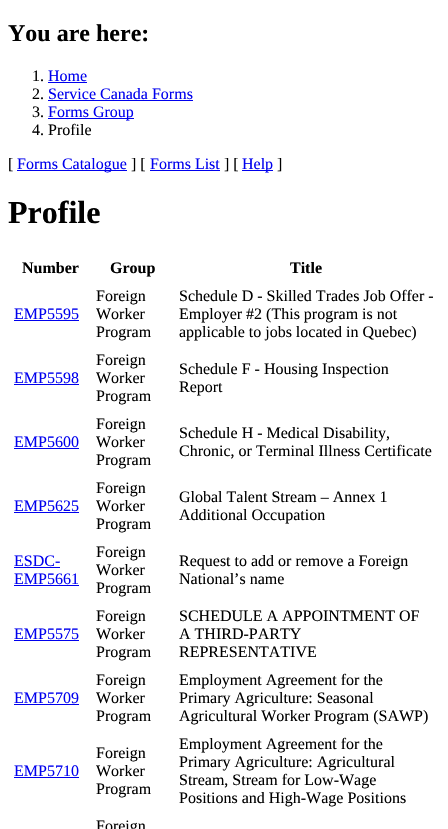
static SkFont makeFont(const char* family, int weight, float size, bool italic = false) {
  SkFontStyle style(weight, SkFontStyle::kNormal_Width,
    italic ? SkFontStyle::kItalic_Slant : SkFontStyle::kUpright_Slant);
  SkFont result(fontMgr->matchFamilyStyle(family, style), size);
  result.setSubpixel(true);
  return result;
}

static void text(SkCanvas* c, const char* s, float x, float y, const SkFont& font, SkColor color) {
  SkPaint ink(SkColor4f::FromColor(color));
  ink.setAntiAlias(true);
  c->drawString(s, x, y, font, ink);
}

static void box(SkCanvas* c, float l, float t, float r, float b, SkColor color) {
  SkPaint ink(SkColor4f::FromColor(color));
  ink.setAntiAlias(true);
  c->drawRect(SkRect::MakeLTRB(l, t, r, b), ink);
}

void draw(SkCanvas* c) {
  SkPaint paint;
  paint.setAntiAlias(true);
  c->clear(0xffffffff);
  SkFont face1 = makeFont("Liberation Serif", 700, 24);
  text(c, "You are here:", 8, 41, face1, 0xff000000);
  SkFont face2 = makeFont("Liberation Serif", 400, 16);
  text(c, "1.", 32, 81, face2, 0xff000000);
  text(c, "Home", 48, 81, face2, 0xff0000ee);
  box(c, 48, 82, 87, 83, 0xff0000ee);
  text(c, "2.", 32, 99, face2, 0xff000000);
  text(c, "Service Canada Forms", 48, 99, face2, 0xff0000ee);
  box(c, 48, 100, 193, 101, 0xff0000ee);
  text(c, "3.", 32, 117, face2, 0xff000000);
  box(c, 48, 118, 134, 119, 0xff0000ee);
  text(c, "Forms Group", 48, 117, face2, 0xff0000ee);
  text(c, "4. Profile", 32, 135, face2, 0xff000000);
  text(c, "[", 8, 169, face2, 0xff000000);
  box(c, 17, 170, 127, 171, 0xff0000ee);
  text(c, "Forms Catalogue", 17, 169, face2, 0xff0000ee);
  text(c, "] [", 131, 169, face2, 0xff000000);
  text(c, "Forms List", 150, 169, face2, 0xff0000ee);
  box(c, 150, 170, 220, 171, 0xff0000ee);
  text(c, "] [", 224, 169, face2, 0xff000000);
  box(c, 242, 170, 273, 171, 0xff0000ee);
  text(c, "Help", 242, 169, face2, 0xff0000ee);
  text(c, "]", 277, 169, face2, 0xff000000);
  SkFont face3 = makeFont("Liberation Serif", 700, 32);
  text(c, "Profile", 8, 223, face3, 0xff000000);
  SkFont face4 = makeFont("Liberation Serif", 700, 16);
  text(c, "Number", 22, 273, face4, 0xff000000);
  text(c, "Group", 110, 273, face4, 0xff000000);
  text(c, "Title", 290, 273, face4, 0xff000000);
  text(c, "EMP5595", 14, 319, face2, 0xff0000ee);
  box(c, 14, 320, 79, 321, 0xff0000ee);
  text(c, "Foreign", 96, 301, face2, 0xff000000);
  text(c, "Worker", 96, 319, face2, 0xff000000);
  text(c, "Program", 96, 337, face2, 0xff000000);
  text(c, "Schedule D - Skilled Trades Job Offer -", 179, 301, face2, 0xff000000);
  text(c, "Employer #2 (This program is not", 179, 319, face2, 0xff000000);
  text(c, "applicable to jobs located in Quebec)", 179, 337, face2, 0xff000000);
  text(c, "EMP5598", 14, 383, face2, 0xff0000ee);
  box(c, 14, 384, 79, 385, 0xff0000ee);
  text(c, "Foreign", 96, 365, face2, 0xff000000);
  text(c, "Worker", 96, 383, face2, 0xff000000);
  text(c, "Program", 96, 401, face2, 0xff000000);
  text(c, "Schedule F - Housing Inspection", 179, 374, face2, 0xff000000);
  text(c, "Report", 179, 392, face2, 0xff000000);
  text(c, "EMP5600", 14, 447, face2, 0xff0000ee);
  box(c, 14, 448, 79, 449, 0xff0000ee);
  text(c, "Foreign", 96, 429, face2, 0xff000000);
  text(c, "Worker", 96, 447, face2, 0xff000000);
  text(c, "Program", 96, 465, face2, 0xff000000);
  text(c, "Schedule H - Medical Disability,", 179, 438, face2, 0xff000000);
  text(c, "Chronic, or Terminal Illness Certificate", 179, 456, face2, 0xff000000);
  text(c, "EMP5625", 14, 511, face2, 0xff0000ee);
  box(c, 14, 512, 79, 513, 0xff0000ee);
  text(c, "Foreign", 96, 493, face2, 0xff000000);
  text(c, "Worker", 96, 511, face2, 0xff000000);
  text(c, "Program", 96, 529, face2, 0xff000000);
  text(c, "Global Talent Stream – Annex 1", 179, 502, face2, 0xff000000);
  text(c, "Additional Occupation", 179, 520, face2, 0xff000000);
  text(c, "ESDC-", 14, 566, face2, 0xff0000ee);
  box(c, 14, 567, 60, 568, 0xff0000ee);
  text(c, "EMP5661", 14, 584, face2, 0xff0000ee);
  box(c, 14, 585, 79, 586, 0xff0000ee);
  text(c, "Foreign", 96, 557, face2, 0xff000000);
  text(c, "Worker", 96, 575, face2, 0xff000000);
  text(c, "Program", 96, 593, face2, 0xff000000);
  text(c, "Request to add or remove a Foreign", 179, 566, face2, 0xff000000);
  text(c, "National’s name", 179, 584, face2, 0xff000000);
  text(c, "EMP5575", 14, 639, face2, 0xff0000ee);
  box(c, 14, 640, 79, 641, 0xff0000ee);
  text(c, "Foreign", 96, 621, face2, 0xff000000);
  text(c, "Worker", 96, 639, face2, 0xff000000);
  text(c, "Program", 96, 657, face2, 0xff000000);
  text(c, "SCHEDULE A APPOINTMENT OF", 179, 621, face2, 0xff000000);
  text(c, "A THIRD-PARTY", 179, 639, face2, 0xff000000);
  text(c, "REPRESENTATIVE", 179, 657, face2, 0xff000000);
  text(c, "EMP5709", 14, 703, face2, 0xff0000ee);
  box(c, 14, 704, 79, 705, 0xff0000ee);
  text(c, "Foreign", 96, 685, face2, 0xff000000);
  text(c, "Worker", 96, 703, face2, 0xff000000);
  text(c, "Program", 96, 721, face2, 0xff000000);
  text(c, "Employment Agreement for the", 179, 685, face2, 0xff000000);
  text(c, "Primary Agriculture: Seasonal", 179, 703, face2, 0xff000000);
  text(c, "Agricultural Worker Program (SAWP)", 179, 721, face2, 0xff000000);
  text(c, "EMP5710", 14, 776, face2, 0xff0000ee);
  box(c, 14, 777, 79, 778, 0xff0000ee);
  text(c, "Foreign", 96, 758, face2, 0xff000000);
  text(c, "Worker", 96, 776, face2, 0xff000000);
  text(c, "Program", 96, 794, face2, 0xff000000);
  text(c, "Employment Agreement for the", 179, 749, face2, 0xff000000);
  text(c, "Primary Agriculture: Agricultural", 179, 767, face2, 0xff000000);
  text(c, "Stream, Stream for Low-Wage", 179, 785, face2, 0xff000000);
  text(c, "Positions and High-Wage Positions", 179, 803, face2, 0xff000000);
  text(c, "Foreign", 96, 831, face2, 0xff000000);
}
